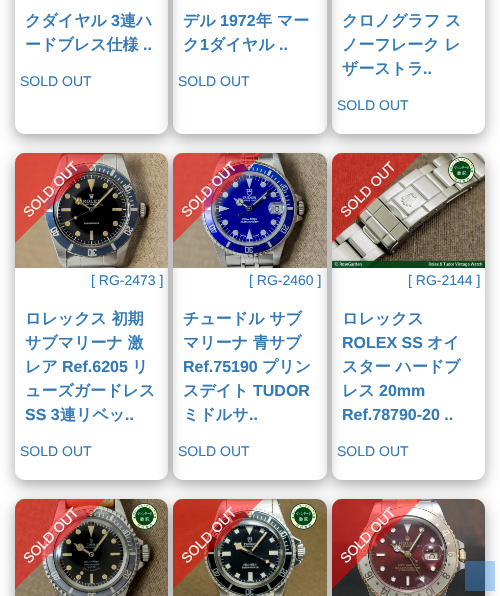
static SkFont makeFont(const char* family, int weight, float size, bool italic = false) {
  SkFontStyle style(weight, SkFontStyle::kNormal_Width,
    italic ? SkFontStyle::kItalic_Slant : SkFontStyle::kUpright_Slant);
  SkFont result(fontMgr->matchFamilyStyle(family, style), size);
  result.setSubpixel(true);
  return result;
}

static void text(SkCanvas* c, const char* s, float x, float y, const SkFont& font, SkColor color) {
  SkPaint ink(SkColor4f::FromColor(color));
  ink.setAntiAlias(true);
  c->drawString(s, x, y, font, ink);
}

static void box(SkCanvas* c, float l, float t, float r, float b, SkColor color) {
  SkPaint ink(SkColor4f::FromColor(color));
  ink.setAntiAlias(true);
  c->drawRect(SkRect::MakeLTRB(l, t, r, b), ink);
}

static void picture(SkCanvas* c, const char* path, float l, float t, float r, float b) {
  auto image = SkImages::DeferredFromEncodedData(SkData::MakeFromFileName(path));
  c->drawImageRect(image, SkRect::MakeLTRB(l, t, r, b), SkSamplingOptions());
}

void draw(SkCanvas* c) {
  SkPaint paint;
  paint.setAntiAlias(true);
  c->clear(0xffffffff);
  c->save();
  c->clipPath(SkPathBuilder(SkPathFillType::kEvenOdd).moveTo(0, 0).lineTo(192, 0).lineTo(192, 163).lineTo(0, 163).close().moveTo(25, -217).lineTo(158, -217).cubicTo(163.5f, -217, 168, -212.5f, 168, -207).lineTo(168, 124).cubicTo(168, 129.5f, 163.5f, 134, 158, 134).lineTo(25, 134).cubicTo(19.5f, 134, 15, 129.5f, 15, 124).lineTo(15, -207).cubicTo(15, -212.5f, 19.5f, -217, 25, -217).close().detach(), true);
  paint.setColor(0x59000000);
  paint.setMaskFilter(SkMaskFilter::MakeBlur(kNormal_SkBlurStyle, 7.5f));
  c->drawRoundRect(SkRect::MakeLTRB(15, -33, 168, 139), 10, 10, paint);
  paint.setMaskFilter(nullptr);
  c->restore();
  SkFont face1 = makeFont("WenQuanYi Zen Hei", 700, 16);
  text(c, "クダイヤル", 25, 26, face1, 0xff337ab7);
  SkFont face2 = makeFont("Liberation Sans", 700, 16);
  text(c, "3", 111, 26, face2, 0xff337ab7);
  text(c, "連ハ", 120, 26, face1, 0xff337ab7);
  text(c, "ードブレス仕様", 25, 50, face1, 0xff337ab7);
  text(c, "..", 143, 50, face2, 0xff337ab7);
  SkFont face3 = makeFont("Liberation Sans", 400, 14);
  text(c, "SOLD OUT", 20, 86, face3, 0xff337ab7);
  c->save();
  c->clipPath(SkPathBuilder(SkPathFillType::kEvenOdd).moveTo(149, 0).lineTo(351, 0).lineTo(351, 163).lineTo(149, 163).close().moveTo(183, -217).lineTo(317, -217).cubicTo(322.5f, -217, 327, -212.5f, 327, -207).lineTo(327, 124).cubicTo(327, 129.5f, 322.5f, 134, 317, 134).lineTo(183, 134).cubicTo(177.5f, 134, 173, 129.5f, 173, 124).lineTo(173, -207).cubicTo(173, -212.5f, 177.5f, -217, 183, -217).close().detach(), true);
  paint.setMaskFilter(SkMaskFilter::MakeBlur(kNormal_SkBlurStyle, 7.5f));
  c->drawRoundRect(SkRect::MakeLTRB(173, -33, 327, 139), 10, 10, paint);
  paint.setMaskFilter(nullptr);
  c->restore();
  text(c, "デル", 183, 26, face1, 0xff337ab7);
  text(c, "1972", 220, 26, face2, 0xff337ab7);
  text(c, "年 マー", 256, 26, face1, 0xff337ab7);
  text(c, "ク", 183, 50, face1, 0xff337ab7);
  text(c, "1", 200, 50, face2, 0xff337ab7);
  text(c, "ダイヤル", 209, 50, face1, 0xff337ab7);
  text(c, "..", 279, 50, face2, 0xff337ab7);
  text(c, "SOLD OUT", 178, 86, face3, 0xff337ab7);
  c->save();
  c->clipPath(SkPathBuilder(SkPathFillType::kEvenOdd).moveTo(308, 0).lineTo(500, 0).lineTo(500, 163).lineTo(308, 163).close().moveTo(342, -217).lineTo(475, -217).cubicTo(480.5f, -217, 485, -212.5f, 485, -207).lineTo(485, 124).cubicTo(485, 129.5f, 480.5f, 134, 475, 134).lineTo(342, 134).cubicTo(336.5f, 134, 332, 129.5f, 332, 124).lineTo(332, -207).cubicTo(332, -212.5f, 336.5f, -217, 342, -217).close().detach(), true);
  paint.setMaskFilter(SkMaskFilter::MakeBlur(kNormal_SkBlurStyle, 7.5f));
  c->drawRoundRect(SkRect::MakeLTRB(332, -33, 485, 139), 10, 10, paint);
  paint.setMaskFilter(nullptr);
  c->restore();
  text(c, "クロノグラフ ス", 342, 26, face1, 0xff337ab7);
  text(c, "ノーフレーク レ", 342, 50, face1, 0xff337ab7);
  text(c, "ザーストラ", 342, 74, face1, 0xff337ab7);
  text(c, "..", 423, 74, face2, 0xff337ab7);
  text(c, "SOLD OUT", 337, 110, face3, 0xff337ab7);
  c->save();
  c->clipPath(SkPathBuilder(SkPathFillType::kEvenOdd).moveTo(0, 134).lineTo(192, 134).lineTo(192, 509).lineTo(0, 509).close().moveTo(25, 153).lineTo(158, 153).cubicTo(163.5f, 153, 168, 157.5f, 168, 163).lineTo(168, 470).cubicTo(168, 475.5f, 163.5f, 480, 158, 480).lineTo(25, 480).cubicTo(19.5f, 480, 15, 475.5f, 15, 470).lineTo(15, 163).cubicTo(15, 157.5f, 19.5f, 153, 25, 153).close().detach(), true);
  paint.setMaskFilter(SkMaskFilter::MakeBlur(kNormal_SkBlurStyle, 7.5f));
  c->drawRoundRect(SkRect::MakeLTRB(15, 158, 168, 485), 10, 10, paint);
  paint.setMaskFilter(nullptr);
  c->restore();
  c->save();
  c->clipPath(SkPathBuilder(SkPathFillType::kEvenOdd).moveTo(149, 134).lineTo(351, 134).lineTo(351, 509).lineTo(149, 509).close().moveTo(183, 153).lineTo(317, 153).cubicTo(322.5f, 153, 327, 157.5f, 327, 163).lineTo(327, 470).cubicTo(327, 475.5f, 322.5f, 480, 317, 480).lineTo(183, 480).cubicTo(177.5f, 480, 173, 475.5f, 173, 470).lineTo(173, 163).cubicTo(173, 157.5f, 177.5f, 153, 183, 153).close().detach(), true);
  paint.setMaskFilter(SkMaskFilter::MakeBlur(kNormal_SkBlurStyle, 7.5f));
  c->drawRoundRect(SkRect::MakeLTRB(173, 158, 327, 485), 10, 10, paint);
  paint.setMaskFilter(nullptr);
  c->restore();
  picture(c, "img_01.png", 15, 153, 168, 268);
  paint.setColor(0x80ff0000);
  c->drawPath(SkPathBuilder().moveTo(15, 243).lineTo(105, 153).lineTo(22, 153).cubicTo(18, 155, 15, 158, 15, 163).close().detach(), paint);
  c->save();
  c->rotate(-45, 29, 218);
  text(c, "SOLD OUT", 29, 218, face3, 0xffffffff);
  c->restore();
  text(c, "[ RG-2473 ]", 91, 285, face3, 0xff337ab7);
  text(c, "ロレックス 初期", 25, 324, face1, 0xff337ab7);
  text(c, "サブマリーナ 激", 25, 348, face1, 0xff337ab7);
  text(c, "レア", 25, 372, face1, 0xff337ab7);
  text(c, "Ref.6205", 62, 372, face2, 0xff337ab7);
  text(c, "リ", 132, 372, face1, 0xff337ab7);
  text(c, "ューズガードレス", 25, 396, face1, 0xff337ab7);
  text(c, "SS 3", 25, 420, face2, 0xff337ab7);
  text(c, "連リベッ", 60, 420, face1, 0xff337ab7);
  text(c, "..", 125, 420, face2, 0xff337ab7);
  text(c, "SOLD OUT", 20, 456, face3, 0xff337ab7);
  c->save();
  c->clipPath(SkPathBuilder(SkPathFillType::kEvenOdd).moveTo(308, 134).lineTo(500, 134).lineTo(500, 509).lineTo(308, 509).close().moveTo(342, 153).lineTo(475, 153).cubicTo(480.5f, 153, 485, 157.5f, 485, 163).lineTo(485, 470).cubicTo(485, 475.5f, 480.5f, 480, 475, 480).lineTo(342, 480).cubicTo(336.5f, 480, 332, 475.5f, 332, 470).lineTo(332, 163).cubicTo(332, 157.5f, 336.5f, 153, 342, 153).close().detach(), true);
  paint.setColor(0x59000000);
  paint.setMaskFilter(SkMaskFilter::MakeBlur(kNormal_SkBlurStyle, 7.5f));
  c->drawRoundRect(SkRect::MakeLTRB(332, 158, 485, 485), 10, 10, paint);
  paint.setMaskFilter(nullptr);
  c->restore();
  picture(c, "img_02.png", 173, 153, 327, 268);
  paint.setColor(0x80ff0000);
  c->drawPath(SkPathBuilder().moveTo(173, 160).lineTo(173, 243).lineTo(263, 153).lineTo(180, 153).cubicTo(177, 154, 174, 157, 173, 160).close().detach(), paint);
  c->save();
  c->rotate(-45, 187, 218);
  text(c, "SOLD OUT", 187, 218, face3, 0xffffffff);
  c->restore();
  text(c, "[ RG-2460 ]", 249, 285, face3, 0xff337ab7);
  text(c, "チュードル サブ", 183, 324, face1, 0xff337ab7);
  text(c, "マリーナ 青サブ", 183, 348, face1, 0xff337ab7);
  text(c, "Ref.75190", 183, 372, face2, 0xff337ab7);
  text(c, "プリン", 262, 372, face1, 0xff337ab7);
  text(c, "スデイト", 183, 396, face1, 0xff337ab7);
  text(c, "TUDOR", 253, 396, face2, 0xff337ab7);
  text(c, "ミドルサ", 183, 420, face1, 0xff337ab7);
  text(c, "..", 249, 420, face2, 0xff337ab7);
  text(c, "SOLD OUT", 178, 456, face3, 0xff337ab7);
  picture(c, "img_03.png", 332, 153, 485, 268);
  c->drawPath(SkPathBuilder().moveTo(332, 243).lineTo(422, 153).lineTo(339, 153).cubicTo(335, 155, 332, 158, 332, 163).close().detach(), paint);
  c->save();
  c->rotate(-45, 346, 218);
  text(c, "SOLD OUT", 346, 218, face3, 0xffffffff);
  c->restore();
  text(c, "[ RG-2144 ]", 408, 285, face3, 0xff337ab7);
  text(c, "ロレックス", 342, 324, face1, 0xff337ab7);
  text(c, "ROLEX SS", 342, 348, face2, 0xff337ab7);
  text(c, "オイ", 427, 348, face1, 0xff337ab7);
  text(c, "スター ハードブ", 342, 372, face1, 0xff337ab7);
  text(c, "レス", 342, 396, face1, 0xff337ab7);
  text(c, "20mm", 379, 396, face2, 0xff337ab7);
  text(c, "Ref.78790-20 ..", 342, 420, face2, 0xff337ab7);
  text(c, "SOLD OUT", 337, 456, face3, 0xff337ab7);
  paint.setColor(0x59000000);
  paint.setMaskFilter(SkMaskFilter::MakeBlur(kNormal_SkBlurStyle, 7.5f));
  c->drawRoundRect(SkRect::MakeLTRB(15, 504, 168, 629), 10, 10, paint);
  paint.setMaskFilter(nullptr);
  paint.setMaskFilter(SkMaskFilter::MakeBlur(kNormal_SkBlurStyle, 7.5f));
  c->drawRoundRect(SkRect::MakeLTRB(173, 504, 327, 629), 10, 10, paint);
  paint.setMaskFilter(nullptr);
  picture(c, "img_04.png", 15, 499, 168, 596);
  paint.setColor(0x80ff0000);
  c->drawPath(SkPathBuilder().moveTo(15, 589).lineTo(105, 499).lineTo(22, 499).cubicTo(18, 501, 15, 504, 15, 509).close().detach(), paint);
  c->save();
  c->rotate(-45, 29, 564);
  text(c, "SOLD OUT", 29, 564, face3, 0xffffffff);
  c->restore();
  paint.setColor(0x59000000);
  paint.setMaskFilter(SkMaskFilter::MakeBlur(kNormal_SkBlurStyle, 7.5f));
  c->drawRoundRect(SkRect::MakeLTRB(332, 504, 485, 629), 10, 10, paint);
  paint.setMaskFilter(nullptr);
  picture(c, "img_05.png", 173, 499, 327, 596);
  paint.setColor(0x80ff0000);
  c->drawPath(SkPathBuilder().moveTo(173, 506).lineTo(173, 589).lineTo(263, 499).lineTo(180, 499).cubicTo(177, 500, 174, 503, 173, 506).close().detach(), paint);
  c->save();
  c->rotate(-45, 187, 564);
  text(c, "SOLD OUT", 187, 564, face3, 0xffffffff);
  c->restore();
  picture(c, "img_06.png", 332, 499, 485, 596);
  c->drawPath(SkPathBuilder().moveTo(332, 589).lineTo(422, 499).lineTo(339, 499).cubicTo(335, 501, 332, 504, 332, 509).close().detach(), paint);
  c->save();
  c->rotate(-45, 346, 564);
  text(c, "SOLD OUT", 346, 564, face3, 0xffffffff);
  c->restore();
  box(c, 465, 561, 495, 591, 0x663f98ef);
}
